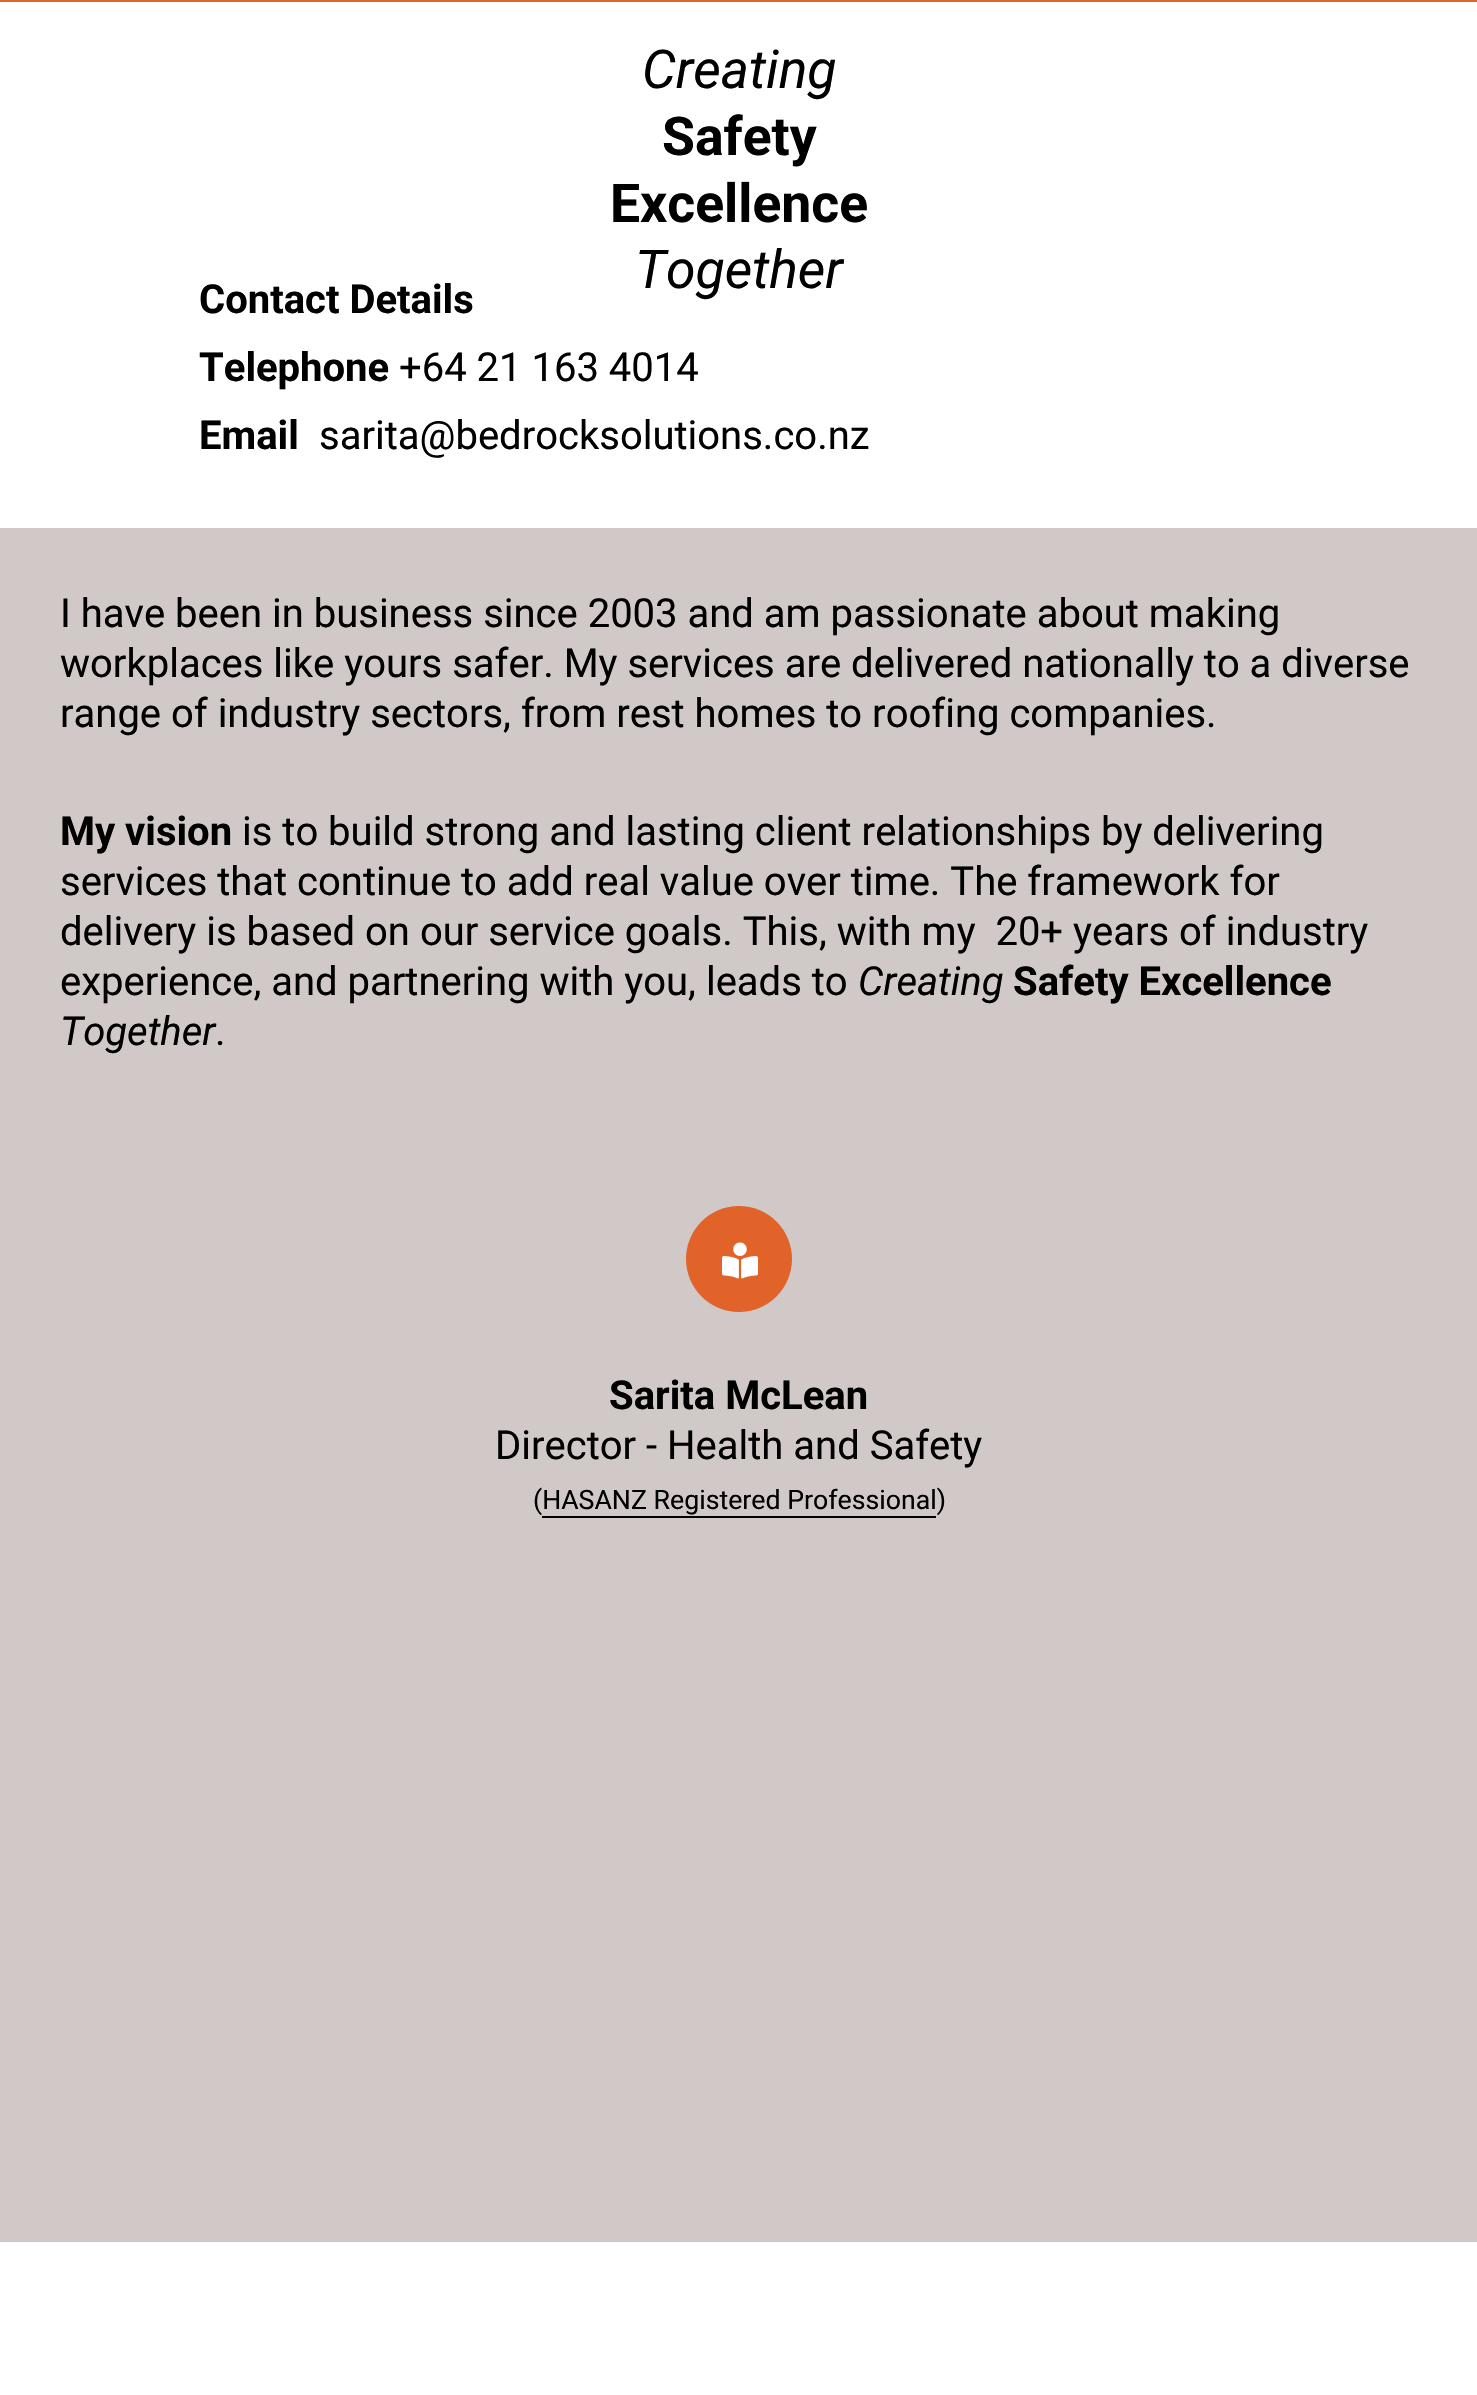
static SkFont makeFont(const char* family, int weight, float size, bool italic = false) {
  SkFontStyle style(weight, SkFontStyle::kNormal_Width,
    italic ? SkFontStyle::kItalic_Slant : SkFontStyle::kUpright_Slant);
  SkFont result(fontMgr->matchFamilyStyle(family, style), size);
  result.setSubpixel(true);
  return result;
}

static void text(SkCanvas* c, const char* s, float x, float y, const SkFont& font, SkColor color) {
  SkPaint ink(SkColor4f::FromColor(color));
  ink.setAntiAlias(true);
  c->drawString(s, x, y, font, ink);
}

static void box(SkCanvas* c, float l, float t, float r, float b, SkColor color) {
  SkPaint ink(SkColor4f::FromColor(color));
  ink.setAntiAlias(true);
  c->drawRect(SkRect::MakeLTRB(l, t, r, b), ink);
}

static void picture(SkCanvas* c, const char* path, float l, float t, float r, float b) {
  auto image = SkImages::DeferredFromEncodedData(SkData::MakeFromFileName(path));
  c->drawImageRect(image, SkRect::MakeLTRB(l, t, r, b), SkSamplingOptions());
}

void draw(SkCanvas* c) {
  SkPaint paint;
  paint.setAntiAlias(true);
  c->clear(0xffffffff);
  box(c, 0, 0, 1477, 2, 0xffe16329);
  SkFont face1 = makeFont("Roboto", 400, 53.5f, true);
  text(c, "Creating", 642, 88, face1, 0xff000000);
  SkFont face2 = makeFont("Roboto", 700, 53.5f);
  text(c, "Safety", 662, 155, face2, 0xff000000);
  text(c, "Excellence", 610, 222, face2, 0xff000000);
  text(c, "Together", 635, 288, face1, 0xff000000);
  SkFont face3 = makeFont("Roboto", 700, 40);
  text(c, "Contact Details", 199, 313, face3, 0xff000000);
  text(c, "Telephone", 199, 381, face3, 0xff000000);
  SkFont face4 = makeFont("Roboto", 400, 40);
  text(c, "+64 21 163 4014", 399, 381, face4, 0xff000000);
  text(c, "Email", 199, 449, face3, 0xff000000);
  text(c, "sarita@bedrocksolutions.co.nz", 319, 449, face4, 0xff000000);
  box(c, 0, 528, 1477, 2242, 0xffd1c8c8);
  text(c, "I have been in business since 2003 and am passionate about making", 60, 627, face4, 0xff000000);
  text(c, "workplaces like yours safer. My services are delivered nationally to a diverse", 60, 677, face4, 0xff000000);
  text(c, "range of industry sectors, from rest homes to roofing companies.", 60, 727, face4, 0xff000000);
  text(c, "My vision", 60, 845, face3, 0xff000000);
  text(c, "is to build strong and lasting client relationships by delivering", 242, 845, face4, 0xff000000);
  text(c, "services that continue to add real value over time. The framework for", 60, 895, face4, 0xff000000);
  text(c, "delivery is based on our service goals. This, with my  20+ years of industry", 60, 945, face4, 0xff000000);
  text(c, "experience, and partnering with you, leads to", 60, 995, face4, 0xff000000);
  SkFont face5 = makeFont("Roboto", 400, 40, true);
  text(c, "Creating", 858, 995, face5, 0xff000000);
  text(c, "Safety Excellence", 1013, 995, face3, 0xff000000);
  text(c, "Together", 60, 1045, face5, 0xff000000);
  text(c, ".", 215, 1045, face4, 0xff000000);
  paint.setColor(0xffe16329);
  c->drawCircle(739, 1259, 53, paint);
  picture(c, "img_01.png", 722, 1242, 758, 1279);
  text(c, "Sarita McLean", 609, 1409, face3, 0xff000000);
  text(c, "Director - Health and Safety", 495, 1459, face4, 0xff000000);
  SkFont face6 = makeFont("Roboto", 400, 26.7f);
  text(c, "(HASANZ Registered Professional)", 533, 1509, face6, 0xff000000);
  box(c, 542, 1516, 936, 1518, 0xff000000);
}
